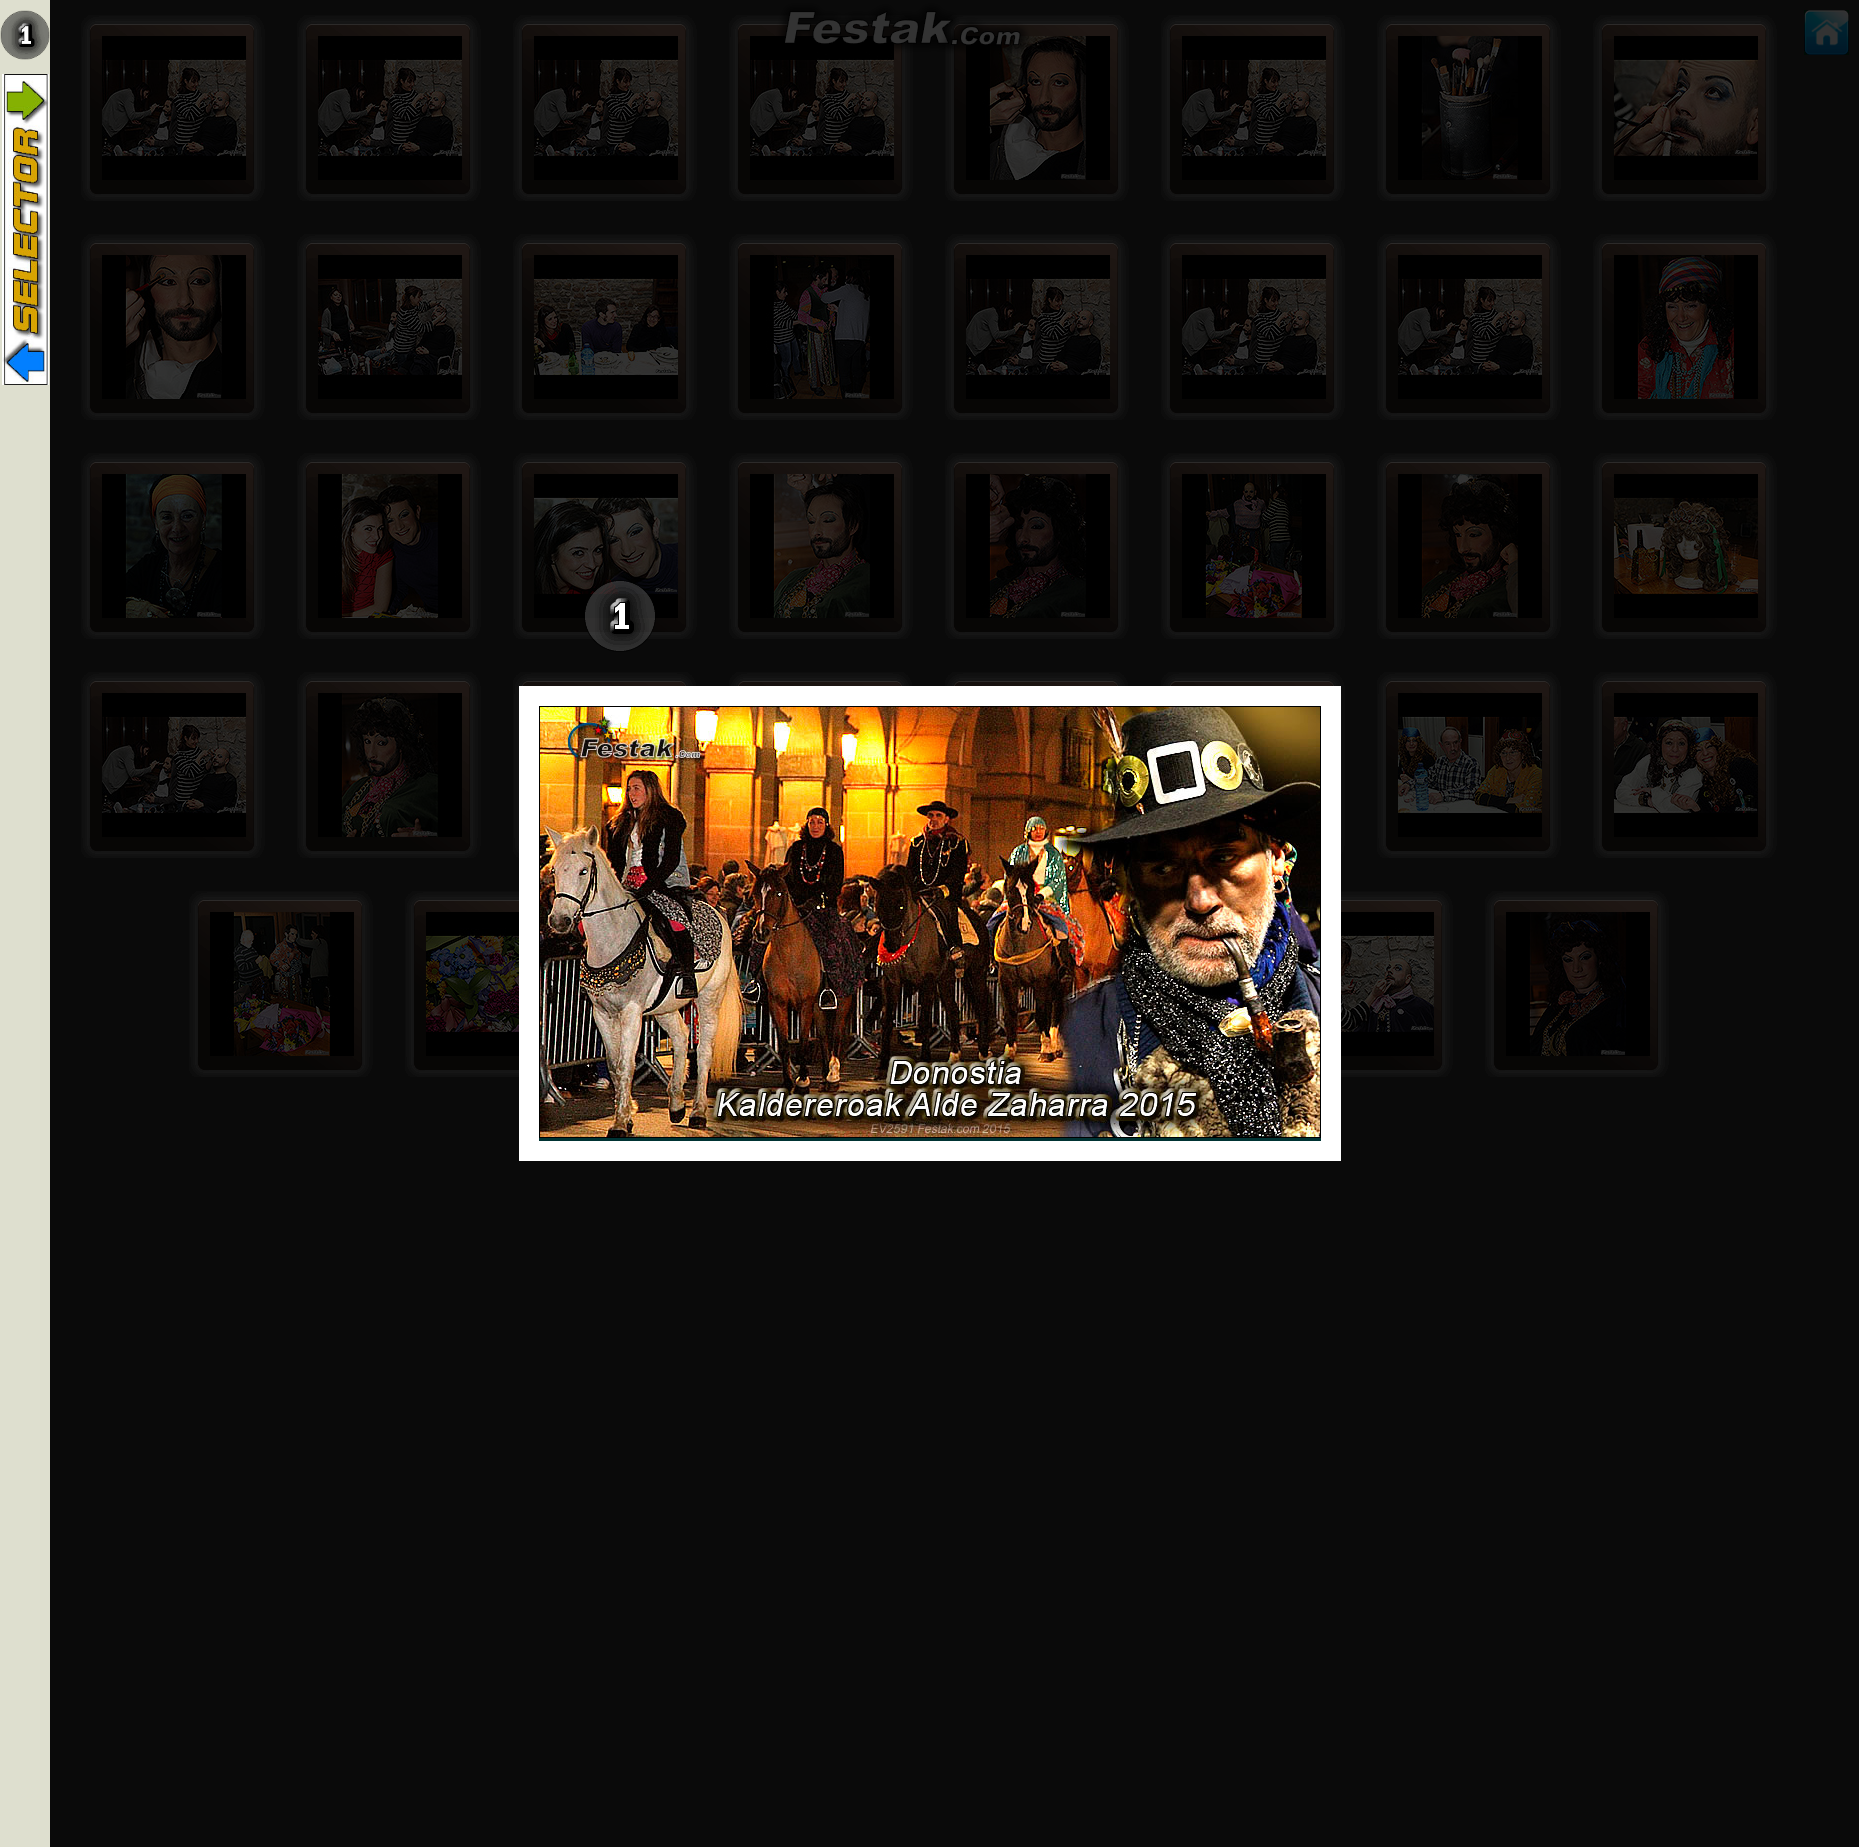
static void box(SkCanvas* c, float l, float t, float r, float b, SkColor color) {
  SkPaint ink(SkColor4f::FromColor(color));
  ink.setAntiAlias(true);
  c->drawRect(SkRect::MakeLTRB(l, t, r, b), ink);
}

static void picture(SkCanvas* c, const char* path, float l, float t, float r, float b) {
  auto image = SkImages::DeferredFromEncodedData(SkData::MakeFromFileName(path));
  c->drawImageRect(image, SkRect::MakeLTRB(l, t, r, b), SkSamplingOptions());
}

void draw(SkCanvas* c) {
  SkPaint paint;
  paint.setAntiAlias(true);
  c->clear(0xff0a0a0a);
  box(c, 0, 0, 50, 1847, 0xffdedfcf);
  picture(c, "img_01.png", 0, 10, 50, 60);
  picture(c, "img_02.png", 2, 74, 49, 385);
  picture(c, "img_03.png", 81, 15, 265, 201);
  picture(c, "img_03.png", 297, 15, 481, 201);
  picture(c, "img_03.png", 513, 15, 697, 201);
  picture(c, "img_03.png", 729, 15, 913, 201);
  picture(c, "img_06.png", 945, 15, 1129, 201);
  picture(c, "img_04.png", 775, 3, 1031, 55);
  picture(c, "img_05.png", 1804, 10, 1849, 55);
  picture(c, "img_03.png", 1161, 15, 1345, 201);
  picture(c, "img_07.png", 1377, 15, 1561, 201);
  picture(c, "img_08.png", 1593, 15, 1777, 201);
  picture(c, "img_09.png", 81, 234, 265, 420);
  picture(c, "img_10.png", 297, 234, 481, 420);
  picture(c, "img_11.png", 513, 234, 697, 420);
  picture(c, "img_12.png", 729, 234, 913, 420);
  picture(c, "img_03.png", 945, 234, 1129, 420);
  picture(c, "img_03.png", 1161, 234, 1345, 420);
  picture(c, "img_03.png", 1377, 234, 1561, 420);
  picture(c, "img_13.png", 1593, 234, 1777, 420);
  picture(c, "img_14.png", 81, 453, 265, 639);
  picture(c, "img_15.png", 297, 453, 481, 639);
  picture(c, "img_16.png", 513, 453, 697, 639);
  picture(c, "img_17.png", 729, 453, 913, 639);
  picture(c, "img_18.png", 945, 453, 1129, 639);
  picture(c, "img_19.png", 1161, 453, 1345, 639);
  picture(c, "img_20.png", 1377, 453, 1561, 639);
  picture(c, "img_21.png", 1593, 453, 1777, 639);
  picture(c, "img_03.png", 81, 672, 265, 858);
  picture(c, "img_22.png", 297, 672, 481, 858);
  picture(c, "img_23.png", 513, 672, 696, 858);
  picture(c, "img_24.png", 729, 672, 912, 686);
  picture(c, "img_24.png", 945, 672, 1128, 686);
  picture(c, "img_25.png", 1161, 672, 1345, 854);
  picture(c, "img_26.png", 1377, 672, 1561, 858);
  picture(c, "img_27.png", 1593, 672, 1777, 858);
  picture(c, "img_28.png", 189, 891, 373, 1077);
  picture(c, "img_29.png", 405, 891, 519, 1077);
  picture(c, "img_30.png", 1341, 891, 1453, 1077);
  picture(c, "img_31.png", 1485, 891, 1669, 1077);
  picture(c, "img_32.png", 584, 580, 656, 652);
  box(c, 539, 1138, 1321, 1141, 0xff003333);
  paint.setStyle(SkPaint::kStroke_Style);
  paint.setStrokeWidth(20);
  paint.setColor(0xffffffff);
  c->drawRect(SkRect::MakeLTRB(529, 696, 1331, 1151), paint);
  paint.setStrokeWidth(1);
  paint.setColor(0xff000000);
  c->drawRect(SkRect::MakeLTRB(539.5f, 706.5f, 1320.5f, 1137.5f), paint);
  picture(c, "img_33.png", 540, 707, 1320, 1137);
}
